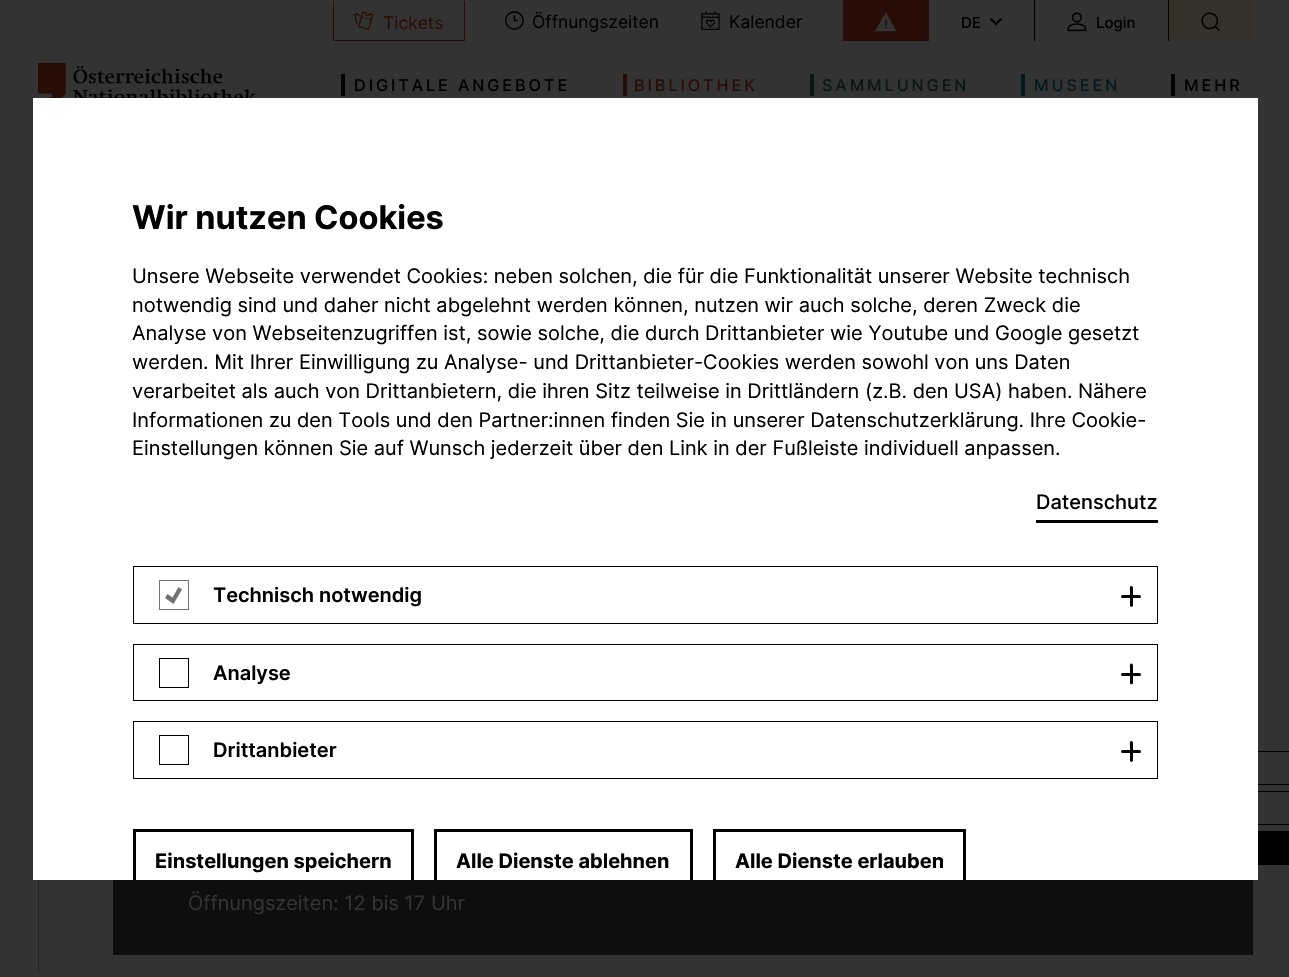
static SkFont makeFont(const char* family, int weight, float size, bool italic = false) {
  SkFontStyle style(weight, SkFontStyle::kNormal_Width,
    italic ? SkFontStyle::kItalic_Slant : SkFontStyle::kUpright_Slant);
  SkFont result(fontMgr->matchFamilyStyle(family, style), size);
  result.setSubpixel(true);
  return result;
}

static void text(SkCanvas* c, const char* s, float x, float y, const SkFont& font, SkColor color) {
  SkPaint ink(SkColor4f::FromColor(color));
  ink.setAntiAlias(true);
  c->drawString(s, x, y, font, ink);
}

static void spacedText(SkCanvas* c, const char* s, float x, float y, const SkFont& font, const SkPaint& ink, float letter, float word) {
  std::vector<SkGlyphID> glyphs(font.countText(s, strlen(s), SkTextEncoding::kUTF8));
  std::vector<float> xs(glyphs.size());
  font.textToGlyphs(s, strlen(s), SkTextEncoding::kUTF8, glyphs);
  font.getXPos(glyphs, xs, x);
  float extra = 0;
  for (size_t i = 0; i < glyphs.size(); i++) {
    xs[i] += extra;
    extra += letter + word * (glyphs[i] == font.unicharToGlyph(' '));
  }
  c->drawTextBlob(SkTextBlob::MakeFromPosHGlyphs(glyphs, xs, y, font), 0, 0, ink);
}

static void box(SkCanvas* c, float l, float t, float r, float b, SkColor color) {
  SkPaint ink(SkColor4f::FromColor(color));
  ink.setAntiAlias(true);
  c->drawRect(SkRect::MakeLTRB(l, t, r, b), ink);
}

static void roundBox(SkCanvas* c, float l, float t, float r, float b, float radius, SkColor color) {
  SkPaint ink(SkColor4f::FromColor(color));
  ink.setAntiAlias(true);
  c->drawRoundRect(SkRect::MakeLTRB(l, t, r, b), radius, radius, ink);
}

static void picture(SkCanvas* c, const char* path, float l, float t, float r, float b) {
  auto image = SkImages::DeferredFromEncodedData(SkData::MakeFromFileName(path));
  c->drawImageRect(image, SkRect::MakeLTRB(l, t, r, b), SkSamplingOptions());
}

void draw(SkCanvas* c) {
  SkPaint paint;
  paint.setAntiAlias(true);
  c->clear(0xff333333);
  box(c, 464, 1, 465, 41, 0xff280d06);
  box(c, 333, 40, 465, 41, 0xff280d06);
  box(c, 333, 1, 334, 41, 0xff280d06);
  picture(c, "img_01.png", 353, 11, 374, 30);
  SkFont face1 = makeFont("Inter", 400, 17.5f);
  text(c, "Tickets", 383, 29, face1, 0xff280d06);
  picture(c, "img_02.png", 505, 11, 524, 30);
  text(c, "Öffnungszeiten", 532, 28, face1, 0xff000000);
  picture(c, "img_03.png", 701, 11, 720, 30);
  text(c, "Kalender", 729, 28, face1, 0xff000000);
  box(c, 843, 0, 929, 41, 0xff280d06);
  picture(c, "img_04.png", 875, 12, 897, 32);
  box(c, 1034, 0, 1035, 41, 0xff000000);
  SkFont face2 = makeFont("Inter", 500, 15);
  text(c, "DE", 961, 28, face2, 0xff000000);
  picture(c, "img_05.png", 990, 18, 1002, 26);
  box(c, 1168, 0, 1169, 41, 0xff000000);
  picture(c, "img_06.png", 1067, 12, 1087, 32);
  text(c, "Login", 1096, 28, face2, 0xff000000);
  box(c, 1169, 0, 1253, 41, 0xff333128);
  picture(c, "img_07.png", 1201, 12, 1220, 32);
  picture(c, "img_08.png", 38, 63, 256, 98);
  box(c, 341, 74, 345, 96, 0xff000000);
  SkFont face3 = makeFont("Inter", 500, 16.25f);
  paint.setColor(0xff000000);
  spacedText(c, "DIGITALE ANGEBOTE", 354, 91, face3, paint, 2.9f, 0);
  box(c, 623, 74, 627, 96, 0xff280d06);
  paint.setColor(0xff280d06);
  spacedText(c, "BIBLIOTHEK", 634, 91, face3, paint, 2.9f, 0);
  box(c, 810, 74, 814, 96, 0xff0b1615);
  paint.setColor(0xff0b1615);
  spacedText(c, "SAMMLUNGEN", 822, 91, face3, paint, 2.9f, 0);
  box(c, 1021, 74, 1025, 96, 0xff071920);
  paint.setColor(0xff071920);
  spacedText(c, "MUSEEN", 1034, 91, face3, paint, 2.9f, 0);
  box(c, 1171, 74, 1175, 96, 0xff000000);
  paint.setColor(0xff000000);
  spacedText(c, "MEHR", 1184, 91, face3, paint, 2.9f, 0);
  box(c, 33, 98, 1258, 880, 0xffffffff);
  SkFont face4 = makeFont("Inter", 700, 32.5f);
  text(c, "Wir nutzen Cookies", 132, 229, face4, 0xff000000);
  SkFont face5 = makeFont("Inter", 400, 20);
  text(c, "Unsere Webseite verwendet Cookies: neben solchen, die für die Funktionalität unserer Website technisch", 132, 283, face5, 0xff000000);
  text(c, "notwendig sind und daher nicht abgelehnt werden können, nutzen wir auch solche, deren Zweck die", 132, 312, face5, 0xff000000);
  text(c, "Analyse von Webseitenzugriffen ist, sowie solche, die durch Drittanbieter wie Youtube und Google gesetzt", 132, 340, face5, 0xff000000);
  text(c, "werden. Mit Ihrer Einwilligung zu Analyse- und Drittanbieter-Cookies werden sowohl von uns Daten", 132, 369, face5, 0xff000000);
  text(c, "verarbeitet als auch von Drittanbietern, die ihren Sitz teilweise in Drittländern (z.B. den USA) haben. Nähere", 132, 398, face5, 0xff000000);
  text(c, "Informationen zu den Tools und den Partner:innen finden Sie in unserer Datenschutzerklärung. Ihre Cookie-", 132, 427, face5, 0xff000000);
  text(c, "Einstellungen können Sie auf Wunsch jederzeit über den Link in der Fußleiste individuell anpassen.", 132, 455, face5, 0xff000000);
  SkFont face6 = makeFont("Inter", 500, 20);
  text(c, "Datenschutz", 1036, 509, face6, 0xff000000);
  box(c, 1036, 520, 1158, 523, 0xff000000);
  paint.setStyle(SkPaint::kStroke_Style);
  paint.setStrokeWidth(1);
  c->drawRect(SkRect::MakeLTRB(133.5f, 566.5f, 1157.5f, 623.5f), paint);
  paint.setColor(0xff737373);
  c->drawRect(SkRect::MakeLTRB(159.5f, 580.5f, 188.5f, 609.5f), paint);
  paint.setStyle(SkPaint::kFill_Style);
  c->drawPath(SkPathBuilder().moveTo(167.5f, 594).lineTo(172.5f, 597.5f).lineTo(178.5f, 587).lineTo(182, 589.5f).lineTo(173.5f, 604).lineTo(165, 598).close().detach(), paint);
  SkFont face7 = makeFont("Inter", 600, 20);
  text(c, "Technisch notwendig", 213, 602, face7, 0xff000000);
  roundBox(c, 1121, 595, 1141, 598, 1.5f, 0xff000000);
  paint.setColor(0xff000000);
  c->drawPath(SkPathBuilder().moveTo(1130, 605.5f).lineTo(1130, 590.5f).cubicTo(1130, 589.5f, 1129.5f, 586.5f, 1131, 586).cubicTo(1133.5f, 585.5f, 1133, 589.5f, 1133, 590.5f).lineTo(1133, 605.5f).cubicTo(1132.5f, 607.5f, 1130, 607, 1130, 605.5f).close().detach(), paint);
  paint.setStyle(SkPaint::kStroke_Style);
  c->drawRect(SkRect::MakeLTRB(133.5f, 644.5f, 1157.5f, 700.5f), paint);
  c->drawRect(SkRect::MakeLTRB(159.5f, 658.5f, 188.5f, 687.5f), paint);
  text(c, "Analyse", 213, 680, face7, 0xff000000);
  roundBox(c, 1121, 673, 1141, 676, 1.5f, 0xff000000);
  paint.setStyle(SkPaint::kFill_Style);
  c->drawPath(SkPathBuilder().moveTo(1130, 683).lineTo(1130, 668).cubicTo(1130, 667, 1129.5f, 664, 1131, 663.5f).cubicTo(1133.5f, 663, 1133, 667, 1133, 668).lineTo(1133, 683).cubicTo(1132.5f, 685, 1130, 684.5f, 1130, 683).close().detach(), paint);
  paint.setStyle(SkPaint::kStroke_Style);
  c->drawRect(SkRect::MakeLTRB(133.5f, 721.5f, 1157.5f, 778.5f), paint);
  c->drawRect(SkRect::MakeLTRB(159.5f, 735.5f, 188.5f, 764.5f), paint);
  text(c, "Drittanbieter", 213, 757, face7, 0xff000000);
  roundBox(c, 1121, 750, 1141, 753, 1.5f, 0xff000000);
  paint.setStyle(SkPaint::kFill_Style);
  c->drawPath(SkPathBuilder().moveTo(1130, 760.5f).lineTo(1130, 745.5f).cubicTo(1130, 744.5f, 1129.5f, 741.5f, 1131, 741).cubicTo(1133.5f, 740.5f, 1133, 744.5f, 1133, 745.5f).lineTo(1133, 760.5f).cubicTo(1132.5f, 762.5f, 1130, 762, 1130, 760.5f).close().detach(), paint);
  box(c, 113, 880, 1253, 955, 0xff0e0e0e);
  text(c, "Öffnungszeiten: 12 bis 17 Uhr", 188, 910, face5, 0xff333333);
  c->save();
  c->clipRect(SkRect::MakeLTRB(33, 98, 1258, 880));
  paint.setStyle(SkPaint::kStroke_Style);
  paint.setStrokeWidth(3);
  c->drawRect(SkRect::MakeLTRB(134.5f, 830.5f, 412.5f, 891.5f), paint);
  c->restore();
  SkFont face8 = makeFont("Inter", 700, 20);
  text(c, "Einstellungen speichern", 155, 868, face8, 0xff000000);
  c->save();
  c->clipRect(SkRect::MakeLTRB(33, 98, 1258, 880));
  c->drawRect(SkRect::MakeLTRB(435.5f, 830.5f, 691.5f, 891.5f), paint);
  c->restore();
  text(c, "Alle Dienste ablehnen", 456, 868, face8, 0xff000000);
  c->save();
  c->clipRect(SkRect::MakeLTRB(33, 98, 1258, 880));
  c->drawRect(SkRect::MakeLTRB(714.5f, 830.5f, 964.5f, 891.5f), paint);
  c->restore();
  text(c, "Alle Dienste erlauben", 735, 868, face8, 0xff000000);
  box(c, 1258, 751, 1289, 752, 0xff000000);
  box(c, 1258, 784, 1289, 785, 0xff000000);
  box(c, 1258, 791, 1289, 792, 0xff000000);
  box(c, 1258, 824, 1289, 825, 0xff000000);
  box(c, 1258, 831, 1289, 865, 0xff000000);
  box(c, 38, 880, 39, 973, 0xff242424);
}
